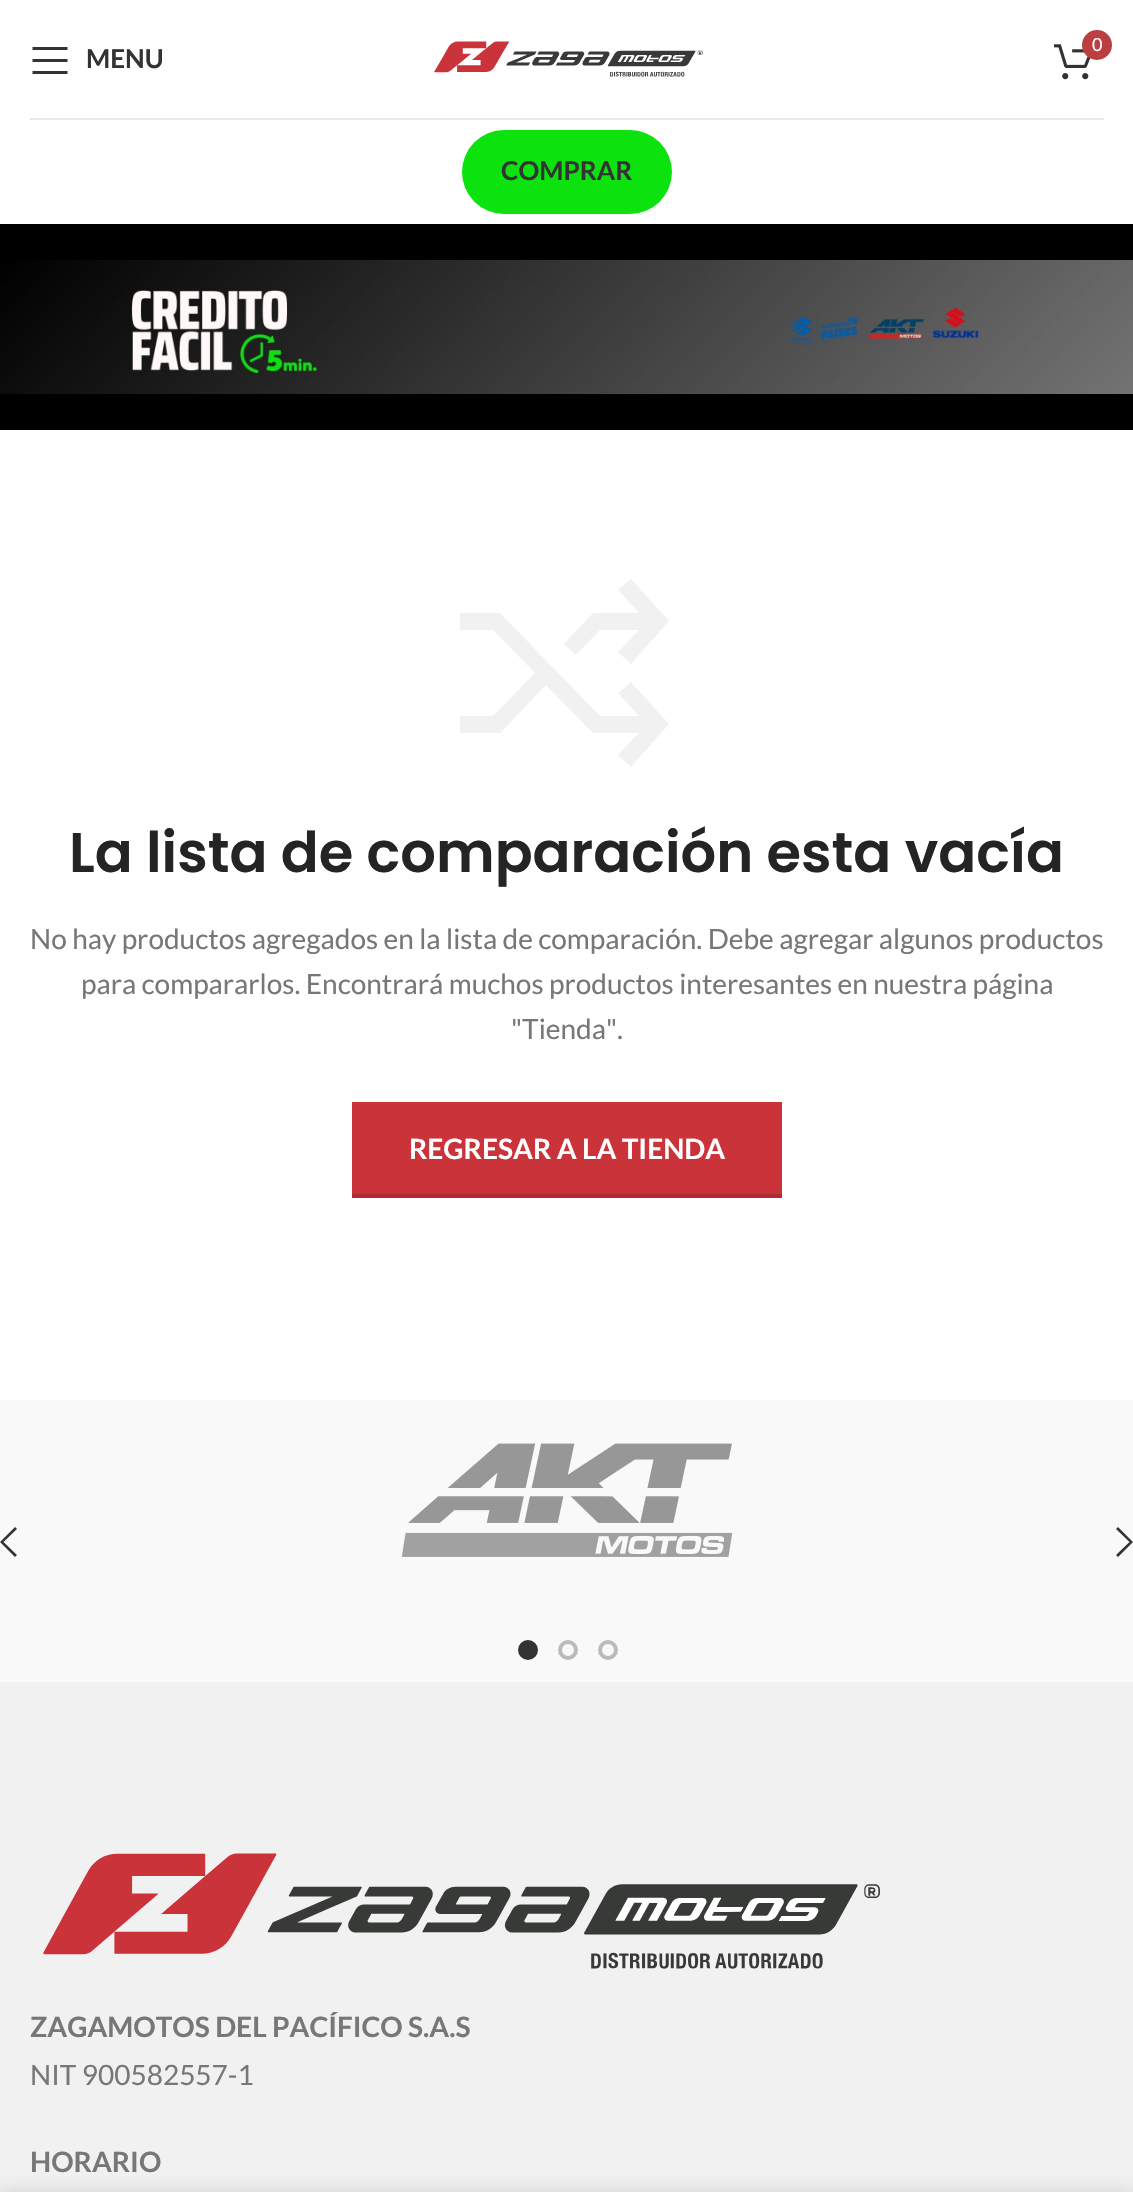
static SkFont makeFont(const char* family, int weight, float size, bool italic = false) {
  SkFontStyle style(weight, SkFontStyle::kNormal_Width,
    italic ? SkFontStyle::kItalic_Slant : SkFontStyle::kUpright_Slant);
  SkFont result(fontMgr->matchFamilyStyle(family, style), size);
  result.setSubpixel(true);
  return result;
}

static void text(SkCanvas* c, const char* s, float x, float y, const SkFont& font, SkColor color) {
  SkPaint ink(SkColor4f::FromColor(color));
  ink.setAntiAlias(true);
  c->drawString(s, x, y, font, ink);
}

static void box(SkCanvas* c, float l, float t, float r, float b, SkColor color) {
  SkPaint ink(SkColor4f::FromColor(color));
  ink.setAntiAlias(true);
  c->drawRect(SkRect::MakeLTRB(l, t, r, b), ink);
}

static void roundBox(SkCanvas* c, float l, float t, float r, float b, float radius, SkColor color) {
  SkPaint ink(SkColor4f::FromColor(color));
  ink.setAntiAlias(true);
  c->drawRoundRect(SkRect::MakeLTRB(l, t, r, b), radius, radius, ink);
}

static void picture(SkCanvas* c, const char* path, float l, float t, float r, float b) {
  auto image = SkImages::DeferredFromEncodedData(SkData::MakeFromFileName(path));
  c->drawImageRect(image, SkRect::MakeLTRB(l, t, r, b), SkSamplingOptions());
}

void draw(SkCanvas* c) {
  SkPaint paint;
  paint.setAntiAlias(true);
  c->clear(0xffffffff);
  box(c, 30, 118, 1104, 120, 0xffe8e8e8);
  paint.setColor(0xff333333);
  c->drawPath(SkPathBuilder().moveTo(32.5f, 50).lineTo(67.5f, 50).lineTo(67.5f, 47).lineTo(32.5f, 47).close().moveTo(32.5f, 62).lineTo(67.5f, 62).lineTo(67.5f, 59).lineTo(32.5f, 59).close().moveTo(32.5f, 74).lineTo(67.5f, 74).lineTo(67.5f, 71).lineTo(32.5f, 71).close().detach(), paint);
  SkFont face1 = makeFont("Lato", 700, 26);
  text(c, "MENU", 86, 68, face1, 0xff333333);
  picture(c, "img_01.png", 434, 41, 703, 77);
  picture(c, "img_02.png", 1054, 44, 1091, 80);
  paint.setColor(0xffbb3e40);
  c->drawCircle(1097, 45, 15, paint);
  SkFont face2 = makeFont("Lato", 400, 18);
  text(c, "0", 1092, 51, face2, 0xffffffff);
  roundBox(c, 462, 130, 672, 214, 42, 0xff0be20e);
  text(c, "COMPRAR", 501, 180, face1, 0xff333333);
  box(c, 0, 224, 1133, 430, 0xff000000);
  picture(c, "img_03.png", 0, 260, 1133, 394);
  paint.setColor(0xfff1f1f1);
  c->drawPath(SkPathBuilder().moveTo(631, 579).lineTo(618, 590).lineTo(639, 613).lineTo(593, 613).lineTo(564, 644).lineTo(576, 655).lineTo(600, 630).lineTo(639, 630).lineTo(618, 652).lineTo(631, 664).lineTo(669, 621).close().moveTo(460, 630).lineTo(493, 630).lineTo(535, 673).lineTo(493, 716).lineTo(460, 716).lineTo(460, 733).lineTo(500, 733).lineTo(546, 685).lineTo(593, 733).lineTo(639, 733).lineTo(618, 755).lineTo(631, 767).lineTo(669, 724).lineTo(631, 682).lineTo(618, 693).lineTo(639, 716).lineTo(600, 716).lineTo(500, 613).lineTo(460, 613).close().detach(), paint);
  SkFont face3 = makeFont("Poppins", 600, 56);
  text(c, "La lista de comparación esta vacía", 69, 872, face3, 0xff242424);
  SkFont face4 = makeFont("Lato", 400, 28);
  text(c, "No hay productos agregados en la lista de comparación. Debe agregar algunos productos", 30, 949, face4, 0xff777777);
  text(c, "para compararlos. Encontrará muchos productos interesantes en nuestra página", 81, 994, face4, 0xff777777);
  text(c, "\"Tienda\".", 511, 1039, face4, 0xff777777);
  box(c, 352, 1102, 782, 1194, 0xffcb333b);
  box(c, 352, 1194, 782, 1198, 0xffad2b32);
  SkFont face5 = makeFont("Lato", 700, 28);
  text(c, "REGRESAR A LA TIENDA", 409, 1159, face5, 0xffffffff);
  box(c, 0, 1400, 1133, 1682, 0xfff9f9f9);
  picture(c, "img_04.png", 401, 1443, 733, 1557);
  paint.setColor(0xff333333);
  c->drawPath(SkPathBuilder().moveTo(17, 1529).lineTo(15, 1527).lineTo(0, 1542).lineTo(15, 1557).lineTo(17, 1555).lineTo(3.5f, 1542).close().detach(), paint);
  c->drawPath(SkPathBuilder().moveTo(1116, 1529).lineTo(1129.5f, 1542).lineTo(1116, 1555).lineTo(1118, 1557).lineTo(1133, 1542).lineTo(1118, 1527).close().detach(), paint);
  c->drawCircle(528, 1650, 8, paint);
  paint.setStyle(SkPaint::kStroke_Style);
  paint.setStrokeWidth(4);
  c->drawCircle(528, 1650, 8, paint);
  paint.setColor(0xffbbbbbb);
  c->drawCircle(568, 1650, 8, paint);
  c->drawCircle(608, 1650, 8, paint);
  box(c, 0, 1682, 1133, 2192, 0xfff1f1f1);
  picture(c, "img_05.png", 43, 1853, 880, 1969);
  text(c, "ZAGAMOTOS DEL PACÍFICO S.A.S", 30, 2037, face5, 0xff777777);
  text(c, "NIT 900582557-1", 30, 2085, face4, 0xff777777);
  text(c, "HORARIO", 30, 2172, face5, 0xff777777);
  paint.setStyle(SkPaint::kFill_Style);
  paint.setColor(0x24000000);
  paint.setMaskFilter(SkMaskFilter::MakeBlur(kNormal_SkBlurStyle, 9));
  c->drawRect(SkRect::MakeLTRB(0, 2192, 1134, 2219), paint);
  paint.setMaskFilter(nullptr);
}
